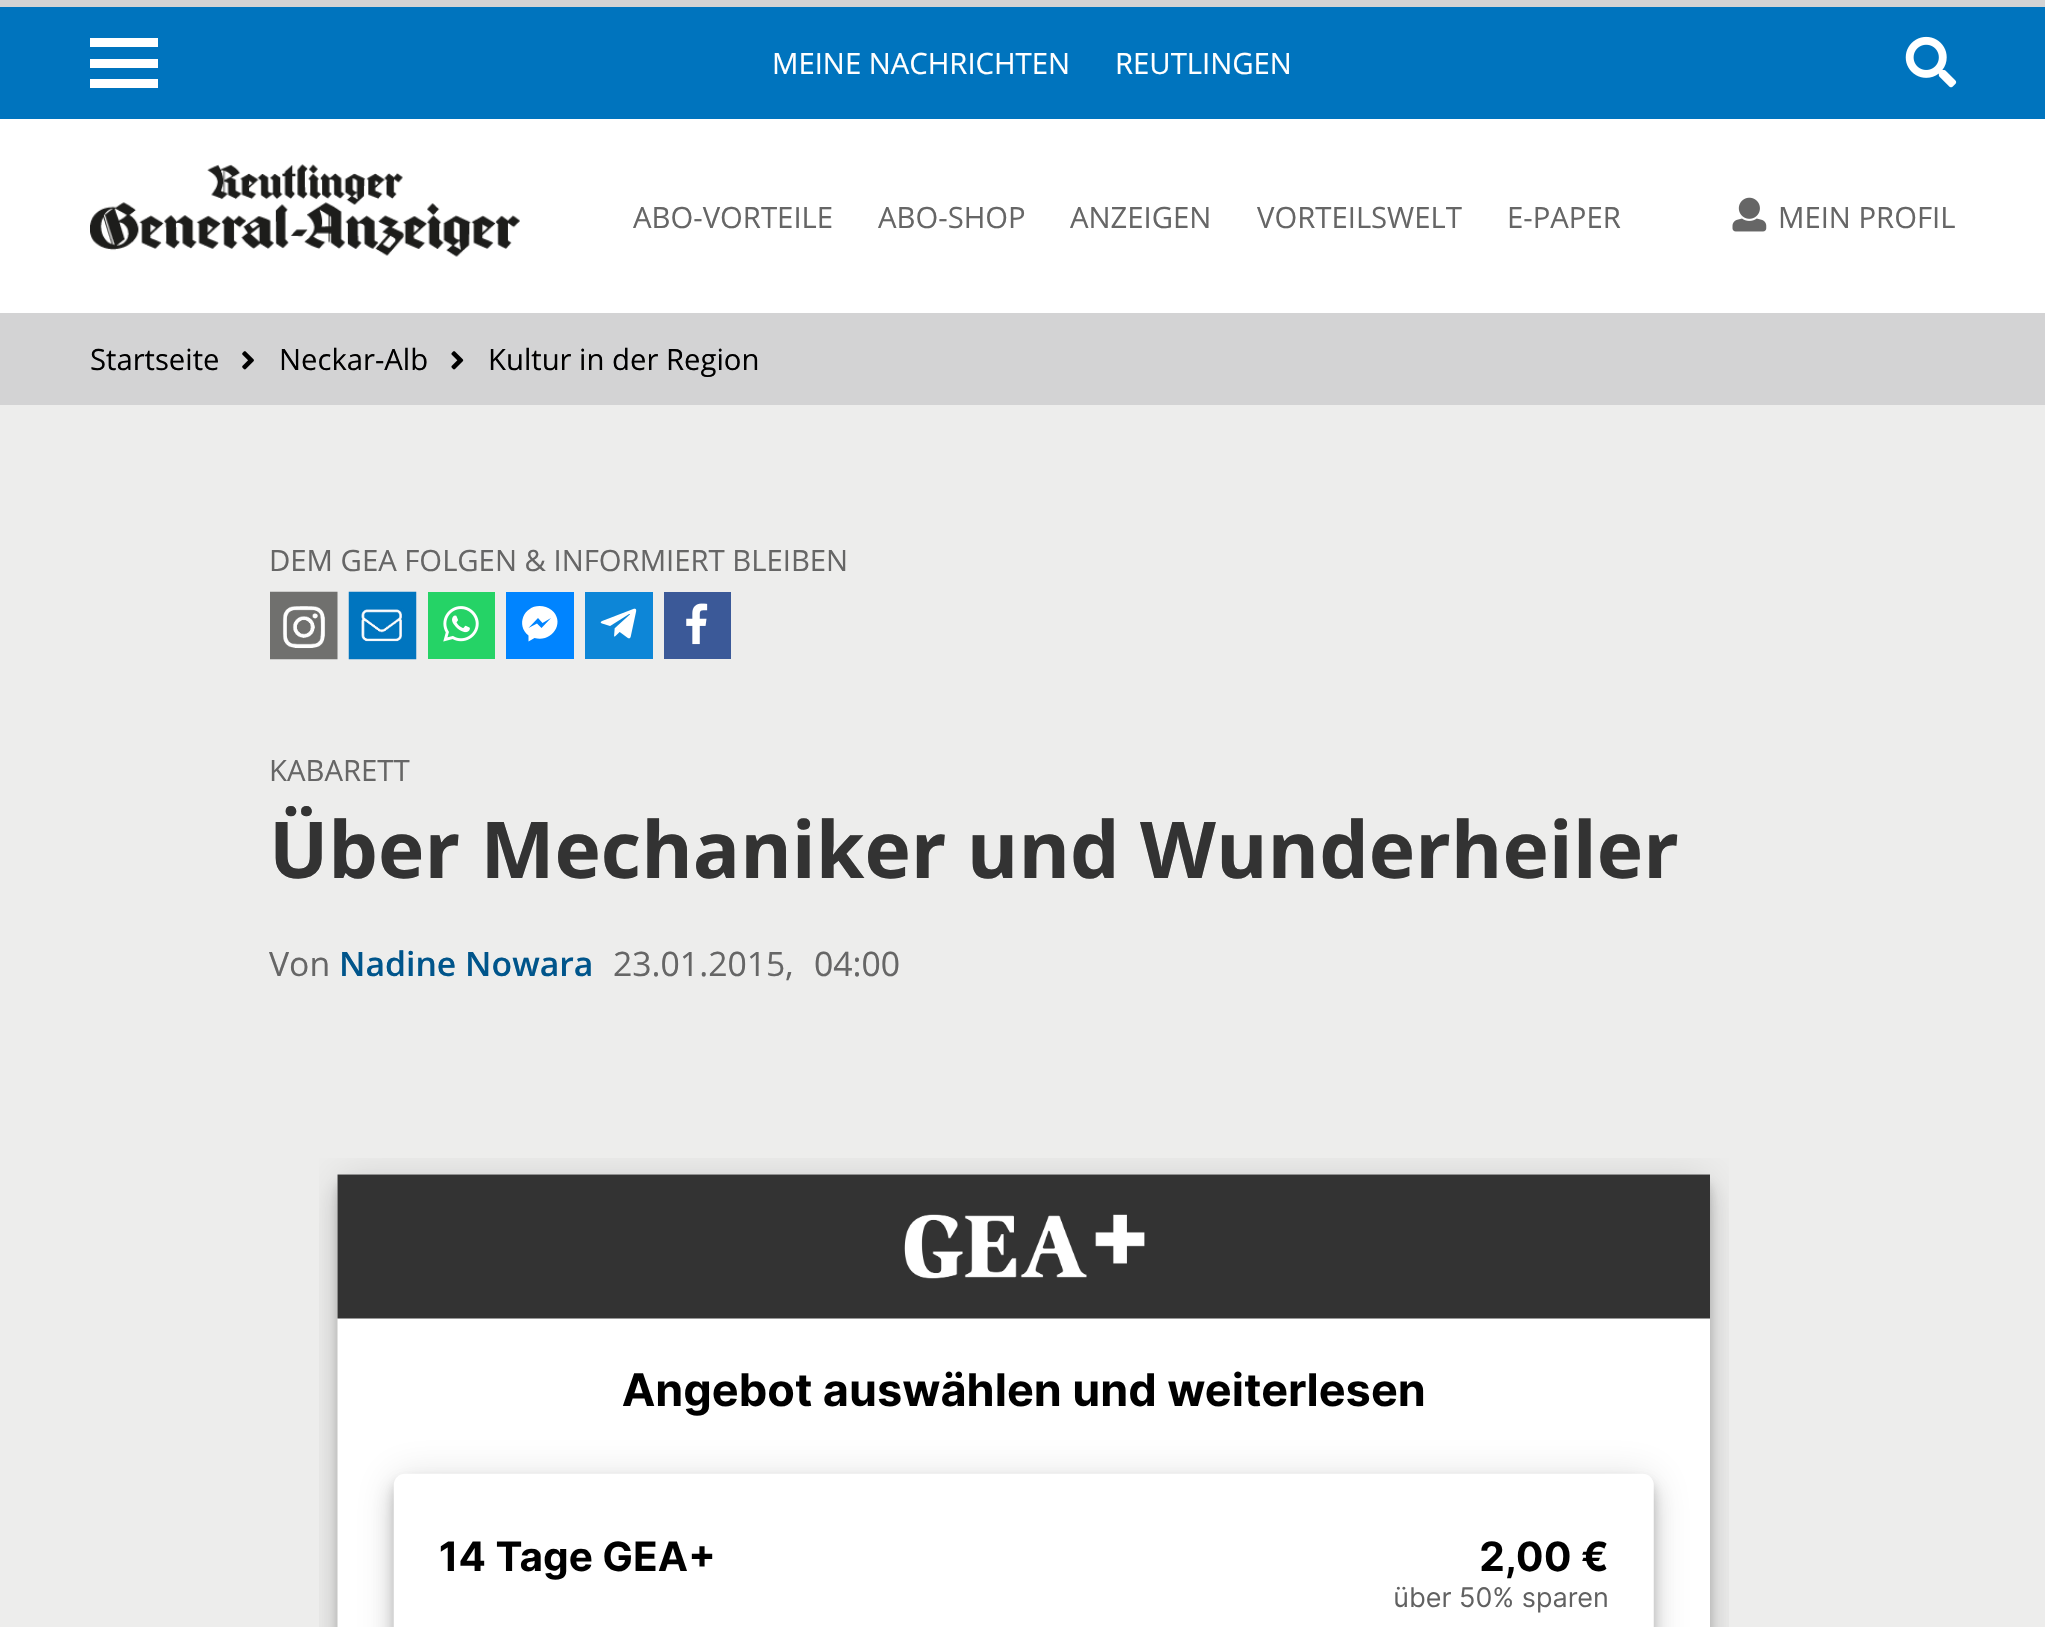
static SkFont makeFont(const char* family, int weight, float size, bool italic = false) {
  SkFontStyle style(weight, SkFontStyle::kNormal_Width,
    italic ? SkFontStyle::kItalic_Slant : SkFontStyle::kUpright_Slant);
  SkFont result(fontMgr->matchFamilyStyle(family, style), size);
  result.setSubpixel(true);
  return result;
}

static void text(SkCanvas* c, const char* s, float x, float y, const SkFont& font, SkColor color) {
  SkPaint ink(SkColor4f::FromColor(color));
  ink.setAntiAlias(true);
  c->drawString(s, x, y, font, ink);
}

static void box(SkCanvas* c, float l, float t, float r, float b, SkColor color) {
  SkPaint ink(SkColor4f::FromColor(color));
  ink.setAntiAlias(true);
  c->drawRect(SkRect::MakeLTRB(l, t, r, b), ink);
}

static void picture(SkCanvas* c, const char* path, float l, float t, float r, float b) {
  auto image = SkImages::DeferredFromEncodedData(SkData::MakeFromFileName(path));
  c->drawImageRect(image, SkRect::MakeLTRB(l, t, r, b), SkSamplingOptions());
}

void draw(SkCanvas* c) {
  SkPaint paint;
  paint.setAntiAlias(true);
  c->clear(0xffd3d3d4);
  box(c, 0, 405, 2045, 1627, 0xffededec);
  box(c, 0, 119, 2045, 313, 0xffffffff);
  box(c, 0, 7, 2045, 119, 0xff0074be);
  box(c, 90, 59, 158, 68, 0xffffffff);
  box(c, 90, 38, 158, 47, 0xffffffff);
  box(c, 90, 79, 158, 88, 0xffffffff);
  SkFont face1 = makeFont("Open Sans", 400, 29.25f);
  text(c, "MEINE NACHRICHTEN", 772, 74, face1, 0xffffffff);
  text(c, "REUTLINGEN", 1115, 74, face1, 0xffffffff);
  picture(c, "img_01.png", 1905, 36, 1957, 88);
  picture(c, "img_02.png", 90, 164, 520, 257);
  text(c, "ABO-VORTEILE", 633, 228, face1, 0xff666666);
  text(c, "ABO-SHOP", 878, 228, face1, 0xff666666);
  text(c, "ANZEIGEN", 1070, 228, face1, 0xff666666);
  text(c, "VORTEILSWELT", 1257, 228, face1, 0xff666666);
  text(c, "E-PAPER", 1507, 228, face1, 0xff666666);
  picture(c, "img_03.png", 1732, 197, 1767, 232);
  text(c, "MEIN PROFIL", 1778, 228, face1, 0xff666666);
  text(c, "Startseite", 90, 370, face1, 0xff000000);
  picture(c, "img_04.png", 242, 351, 254, 370);
  text(c, "Neckar-Alb", 279, 370, face1, 0xff000000);
  picture(c, "img_05.png", 451, 351, 464, 370);
  text(c, "Kultur in der Region", 488, 370, face1, 0xff000000);
  text(c, "DEM GEA FOLGEN & INFORMIERT BLEIBEN", 269, 571, face1, 0xff666666);
  picture(c, "img_06.png", 270, 591, 338, 660);
  picture(c, "img_07.png", 348, 591, 417, 660);
  box(c, 428, 592, 495, 659, 0xff25d366);
  picture(c, "img_08.png", 443, 606, 479, 642);
  box(c, 506, 592, 574, 659, 0xff0084ff);
  paint.setColor(0xffffffff);
  c->drawPath(SkPathBuilder().moveTo(539.5f, 606).cubicTo(524, 606, 515.5f, 625, 528.5f, 635.5f).lineTo(528.5f, 641.5f).lineTo(534.5f, 638).cubicTo(552, 643, 566, 622, 551.5f, 610).cubicTo(548, 607.5f, 544, 606, 539.5f, 606).close().moveTo(541.5f, 628).lineTo(537, 623.5f).lineTo(528.5f, 628).lineTo(538, 618).lineTo(542.5f, 623).lineTo(551, 618).close().detach(), paint);
  box(c, 585, 592, 653, 659, 0xff0d86d7);
  picture(c, "img_09.png", 600, 608, 637, 639);
  box(c, 664, 592, 731, 659, 0xff3b5998);
  picture(c, "img_10.png", 686, 603, 708, 645);
  text(c, "KABARETT", 269, 781, face1, 0xff666666);
  SkFont face2 = makeFont("Open Sans", 700, 78.5f);
  text(c, "Über Mechaniker und Wunderheiler", 269, 878, face2, 0xff333333);
  SkFont face3 = makeFont("Open Sans", 400, 33.75f);
  text(c, "Von", 269, 976, face3, 0xff666666);
  SkFont face4 = makeFont("Open Sans", 600, 33.75f);
  text(c, "Nadine Nowara", 339, 976, face4, 0xff00558b);
  text(c, "23.01.2015,", 613, 976, face3, 0xff666666);
  text(c, "04:00", 814, 976, face3, 0xff666666);
  picture(c, "img_11.png", 319, 1158, 1729, 1627);
}
